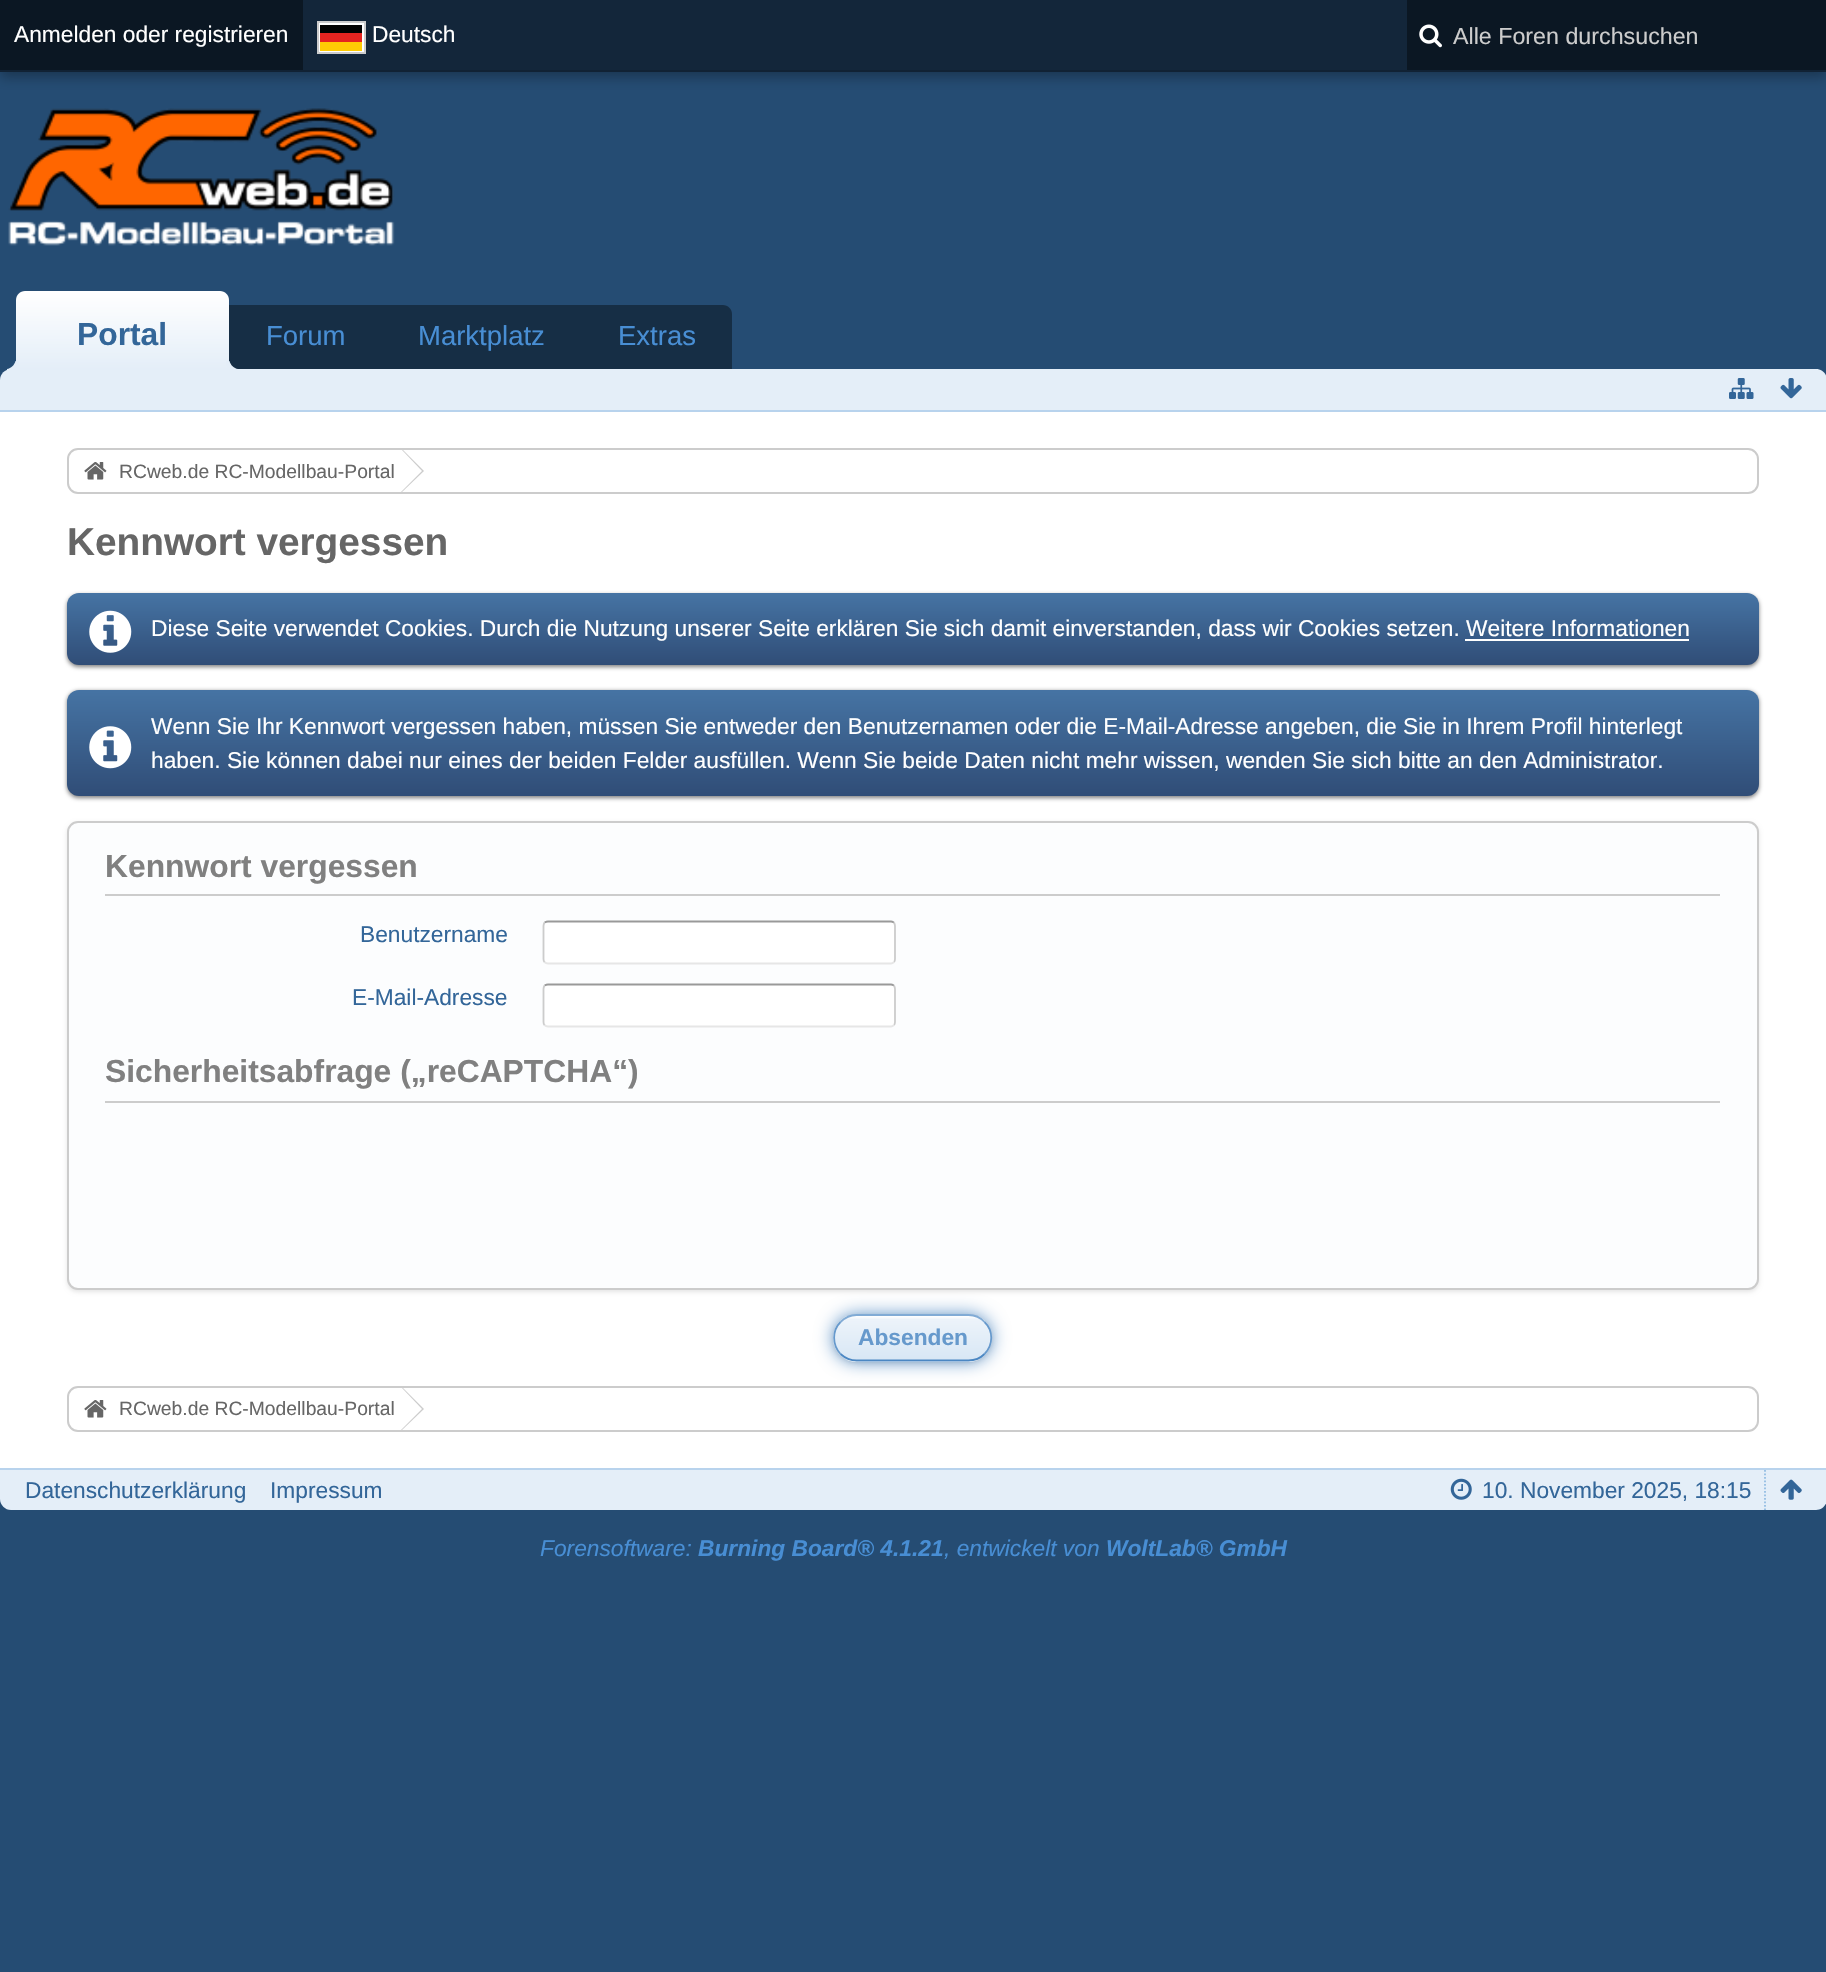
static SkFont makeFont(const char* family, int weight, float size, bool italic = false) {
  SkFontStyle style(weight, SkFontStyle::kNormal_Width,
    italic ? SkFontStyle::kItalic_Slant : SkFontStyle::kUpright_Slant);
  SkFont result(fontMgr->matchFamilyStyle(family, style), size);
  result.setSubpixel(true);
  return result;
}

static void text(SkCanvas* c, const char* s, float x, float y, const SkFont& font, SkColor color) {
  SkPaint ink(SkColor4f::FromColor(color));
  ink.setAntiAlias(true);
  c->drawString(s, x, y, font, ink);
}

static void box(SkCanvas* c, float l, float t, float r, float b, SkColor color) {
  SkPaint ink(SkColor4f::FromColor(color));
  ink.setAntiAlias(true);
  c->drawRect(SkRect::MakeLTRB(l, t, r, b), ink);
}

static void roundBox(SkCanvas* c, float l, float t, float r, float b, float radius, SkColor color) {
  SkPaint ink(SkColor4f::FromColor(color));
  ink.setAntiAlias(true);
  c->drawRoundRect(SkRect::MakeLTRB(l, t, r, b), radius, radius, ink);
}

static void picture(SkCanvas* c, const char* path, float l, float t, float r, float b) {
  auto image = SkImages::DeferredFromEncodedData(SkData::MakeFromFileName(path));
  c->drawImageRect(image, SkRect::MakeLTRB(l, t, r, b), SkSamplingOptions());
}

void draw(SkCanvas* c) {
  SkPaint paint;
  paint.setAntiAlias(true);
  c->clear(0xff254c73);
  c->save();
  c->clipPath(SkPathBuilder(SkPathFillType::kEvenOdd).moveTo(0, 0).lineTo(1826, 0).lineTo(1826, 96).lineTo(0, 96).close().moveTo(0, 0).lineTo(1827, 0).lineTo(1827, 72).lineTo(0, 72).close().detach(), true);
  paint.setColor(0x4d000000);
  paint.setMaskFilter(SkMaskFilter::MakeBlur(kNormal_SkBlurStyle, 6));
  c->drawRect(SkRect::MakeLTRB(0, 5, 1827, 77), paint);
  paint.setMaskFilter(nullptr);
  c->restore();
  box(c, 0, 0, 1826, 72, 0x80000000);
  box(c, 0, 70, 1826, 72, 0x1a000000);
  box(c, 0, 0, 303, 70, 0xff0b1723);
  SkFont face1 = makeFont("Liberation Sans", 400, 22.75f);
  text(c, "Anmelden oder registrieren", 14, 42, face1, 0xffffffff);
  paint.setColor(0xffffffff);
  c->drawRect(SkRect::MakeLTRB(318, 22, 365, 53), paint);
  paint.setStyle(SkPaint::kStroke_Style);
  paint.setStrokeWidth(2);
  paint.setColor(0xffcccccc);
  c->drawRect(SkRect::MakeLTRB(318, 22, 365, 53), paint);
  box(c, 320, 25, 362, 33, 0xff010202);
  box(c, 320, 33, 362, 42, 0xffe52420);
  box(c, 320, 42, 362, 51, 0xffffcc04);
  text(c, "Deutsch", 372, 42, face1, 0xffffffff);
  box(c, 1407, 0, 1826, 70, 0xff0b1723);
  picture(c, "img_01.png", 1419, 24, 1442, 48);
  SkFont face2 = makeFont("Liberation Sans", 400, 23.25f);
  text(c, "Alle Foren durchsuchen", 1453, 44, face2, 0xffcccccc);
  picture(c, "img_02.png", 8, 108, 395, 246);
  paint.setStyle(SkPaint::kFill_Style);
  paint.setColor(0xff162e45);
  c->drawPath(SkPathBuilder().moveTo(25, 305).lineTo(723, 305).cubicTo(728, 305, 732, 309, 732, 314).lineTo(732, 369).lineTo(16, 369).lineTo(16, 314).cubicTo(16, 309, 20, 305, 25, 305).close().detach(), paint);
  {
    const SkColor colors[] = {0xffffffff, 0xffe4eef8};
    const float stops[] = {0, 1};
    const SkPoint ends[] = {{123, 291}, {123, 369}};
    paint.setShader(SkGradientShader::MakeLinear(ends, colors, stops, 2, SkTileMode::kClamp));
    paint.setAlpha(255);
  }
  c->drawPath(SkPathBuilder().moveTo(25, 291).lineTo(220, 291).cubicTo(225, 291, 229, 295, 229, 300).lineTo(229, 369).lineTo(16, 369).lineTo(16, 300).cubicTo(16, 295, 20, 291, 25, 291).close().detach(), paint);
  SkFont face3 = makeFont("Liberation Sans", 700, 31.8f);
  text(c, "Portal", 77, 345, face3, 0xff336699);
  paint.setShader(nullptr);
  paint.setColor(0xffe4eef8);
  c->drawPath(SkPathBuilder().moveTo(11, 369).lineTo(1816, 369).cubicTo(1822, 369, 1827, 374, 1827, 380).lineTo(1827, 411).lineTo(0, 411).lineTo(0, 380).cubicTo(0, 374, 5, 369, 11, 369).close().detach(), paint);
  c->drawPath(SkPathBuilder().moveTo(7, 369).lineTo(7, 373).cubicTo(14.5f, 373, 19, 368.5f, 19, 361).lineTo(15.5f, 361).cubicTo(14.5f, 365, 11, 368.5f, 7, 369).close().detach(), paint);
  c->drawPath(SkPathBuilder().moveTo(226, 361).cubicTo(226, 368.5f, 230.5f, 373, 238, 373).lineTo(238, 369).cubicTo(234, 368.5f, 230.5f, 365, 229.5f, 361).close().detach(), paint);
  SkFont face4 = makeFont("Liberation Sans", 400, 27.5f);
  text(c, "Forum", 266, 345, face4, 0xff488ed4);
  text(c, "Marktplatz", 418, 345, face4, 0xff488ed4);
  text(c, "Extras", 618, 345, face4, 0xff488ed4);
  box(c, 0, 410, 1826, 412, 0xffb8d3ed);
  picture(c, "img_03.png", 1729, 378, 1754, 399);
  picture(c, "img_04.png", 1780, 378, 1802, 399);
  box(c, 0, 412, 1826, 1468, 0xffffffff);
  paint.setStyle(SkPaint::kStroke_Style);
  paint.setColor(0xffcccccc);
  c->drawRoundRect(SkRect::MakeLTRB(68, 449, 1758, 493), 10, 10, paint);
  picture(c, "img_05.png", 84, 462, 107, 480);
  SkFont face5 = makeFont("Liberation Sans", 400, 19.3f);
  text(c, "RCweb.de RC-Modellbau-Portal", 119, 478, face5, 0xff666666);
  paint.setStyle(SkPaint::kFill_Style);
  c->drawPath(SkPathBuilder().moveTo(403, 450).lineTo(424, 471).lineTo(402, 492).lineTo(397, 492).lineTo(397, 450).close().detach(), paint);
  paint.setColor(0xffffffff);
  c->drawPath(SkPathBuilder().moveTo(402, 450).lineTo(422, 471).lineTo(401, 492).lineTo(396, 492).lineTo(396, 450).close().detach(), paint);
  SkFont face6 = makeFont("Liberation Sans", 700, 38.75f);
  text(c, "Kennwort vergessen", 67, 555, face6, 0xff666666);
  paint.setColor(0x80000000);
  paint.setMaskFilter(SkMaskFilter::MakeBlur(kNormal_SkBlurStyle, 2));
  c->drawRoundRect(SkRect::MakeLTRB(67, 595, 1759, 667), 12, 12, paint);
  paint.setMaskFilter(nullptr);
  {
    const SkColor colors[] = {0xff4674a4, 0xff304d77};
    const float stops[] = {0, 1};
    const SkPoint ends[] = {{913, 593}, {913, 665}};
    paint.setShader(SkGradientShader::MakeLinear(ends, colors, stops, 2, SkTileMode::kClamp));
    paint.setAlpha(255);
  }
  c->drawRoundRect(SkRect::MakeLTRB(67, 593, 1759, 665), 12, 12, paint);
  picture(c, "img_06.png", 89, 610, 132, 653);
  text(c, "Diese Seite verwendet Cookies. Durch die Nutzung unserer Seite erklären Sie sich damit einverstanden, dass wir Cookies setzen. Weitere Informationen", 151, 636, face1, 0xffffffff);
  box(c, 1465, 639, 1689, 641, 0xffffffff);
  paint.setShader(nullptr);
  paint.setColor(0x80000000);
  paint.setMaskFilter(SkMaskFilter::MakeBlur(kNormal_SkBlurStyle, 2));
  c->drawRoundRect(SkRect::MakeLTRB(67, 691, 1759, 798), 12, 12, paint);
  paint.setMaskFilter(nullptr);
  {
    const SkColor colors[] = {0xff4674a4, 0xff304d77};
    const float stops[] = {0, 1};
    const SkPoint ends[] = {{913, 689}, {913, 796}};
    paint.setShader(SkGradientShader::MakeLinear(ends, colors, stops, 2, SkTileMode::kClamp));
    paint.setAlpha(255);
  }
  c->drawRoundRect(SkRect::MakeLTRB(67, 690, 1759, 796), 12, 12, paint);
  picture(c, "img_07.png", 89, 726, 132, 769);
  text(c, "Wenn Sie Ihr Kennwort vergessen haben, müssen Sie entweder den Benutzernamen oder die E-Mail-Adresse angeben, die Sie in Ihrem Profil hinterlegt", 151, 734, face1, 0xffffffff);
  text(c, "haben. Sie können dabei nur eines der beiden Felder ausfüllen. Wenn Sie beide Daten nicht mehr wissen, wenden Sie sich bitte an den Administrator.", 151, 768, face1, 0xffffffff);
  paint.setShader(nullptr);
  paint.setColor(0x1a000000);
  paint.setMaskFilter(SkMaskFilter::MakeBlur(kNormal_SkBlurStyle, 2));
  c->drawRoundRect(SkRect::MakeLTRB(67, 823, 1759, 1292), 11, 11, paint);
  paint.setMaskFilter(nullptr);
  paint.setColor(0xfffcfdfe);
  c->drawRoundRect(SkRect::MakeLTRB(68, 822, 1758, 1289), 10, 10, paint);
  paint.setStyle(SkPaint::kStroke_Style);
  paint.setColor(0xffcccccc);
  c->drawRoundRect(SkRect::MakeLTRB(68, 822, 1758, 1289), 10, 10, paint);
  box(c, 105, 894, 1720, 896, 0xffcccccc);
  text(c, "Kennwort vergessen", 105, 877, face3, 0xff808080);
  text(c, "Benutzername", 360, 942, face1, 0xff336699);
  roundBox(c, 543, 921, 896, 964, 5, 0xffffffff);
  paint.setStrokeWidth(1.8f);
  paint.setColor(0xff999999);
  c->drawPath(SkPathBuilder().moveTo(544.5f, 922.5f).cubicTo(545.5f, 922, 546.5f, 921.5f, 548, 921.5f).lineTo(891, 921.5f).cubicTo(892, 921.5f, 893, 922, 894, 922.5f).detach(), paint);
  paint.setColor(0xffcccccc);
  c->drawPath(SkPathBuilder().moveTo(894, 922.5f).cubicTo(894.5f, 923.5f, 895, 924.5f, 895, 926).lineTo(895, 959).cubicTo(895, 960, 894.5f, 961.5f, 894, 962).detach(), paint);
  paint.setColor(0xffe6e6e6);
  c->drawPath(SkPathBuilder().moveTo(894, 962).cubicTo(893, 963, 892, 963.5f, 891, 963.5f).lineTo(548, 963.5f).cubicTo(546.5f, 963.5f, 545.5f, 963, 544.5f, 962).detach(), paint);
  paint.setColor(0xffcccccc);
  c->drawPath(SkPathBuilder().moveTo(544.5f, 962).cubicTo(544, 961.5f, 543.5f, 960, 543.5f, 959).lineTo(543.5f, 926).cubicTo(543.5f, 924.5f, 544, 923.5f, 544.5f, 922.5f).detach(), paint);
  text(c, "E-Mail-Adresse", 352, 1005, face1, 0xff336699);
  roundBox(c, 543, 984, 896, 1027, 5, 0xffffffff);
  paint.setColor(0xff999999);
  c->drawPath(SkPathBuilder().moveTo(544.5f, 985.5f).cubicTo(545.5f, 985, 546.5f, 984.5f, 548, 984.5f).lineTo(891, 984.5f).cubicTo(892, 984.5f, 893, 985, 894, 985.5f).detach(), paint);
  paint.setColor(0xffcccccc);
  c->drawPath(SkPathBuilder().moveTo(894, 985.5f).cubicTo(894.5f, 986.5f, 895, 987.5f, 895, 989).lineTo(895, 1022).cubicTo(895, 1023, 894.5f, 1024.5f, 894, 1025).detach(), paint);
  paint.setColor(0xffe6e6e6);
  c->drawPath(SkPathBuilder().moveTo(894, 1025).cubicTo(893, 1026, 892, 1026.5f, 891, 1026.5f).lineTo(548, 1026.5f).cubicTo(546.5f, 1026.5f, 545.5f, 1026, 544.5f, 1025).detach(), paint);
  paint.setColor(0xffcccccc);
  c->drawPath(SkPathBuilder().moveTo(544.5f, 1025).cubicTo(544, 1024.5f, 543.5f, 1023, 543.5f, 1022).lineTo(543.5f, 989).cubicTo(543.5f, 987.5f, 544, 986.5f, 544.5f, 985.5f).detach(), paint);
  box(c, 105, 1101, 1720, 1103, 0xffcccccc);
  text(c, "Sicherheitsabfrage („reCAPTCHA“)", 105, 1082, face3, 0xff808080);
  paint.setStyle(SkPaint::kFill_Style);
  paint.setColor(0xff6699cc);
  paint.setMaskFilter(SkMaskFilter::MakeBlur(kNormal_SkBlurStyle, 9));
  c->drawRoundRect(SkRect::MakeLTRB(833, 1314, 992, 1362), 24, 24, paint);
  paint.setMaskFilter(nullptr);
  paint.setColor(0x1a000000);
  paint.setMaskFilter(SkMaskFilter::MakeBlur(kNormal_SkBlurStyle, 2.5f));
  c->drawRoundRect(SkRect::MakeLTRB(833, 1316, 992, 1363), 23.5f, 23.5f, paint);
  paint.setMaskFilter(nullptr);
  c->save();
  c->clipPath(SkPathBuilder().moveTo(857, 1314).lineTo(968, 1314).cubicTo(981.5f, 1314, 992, 1324.5f, 992, 1338).cubicTo(992, 1351.5f, 981.5f, 1362, 968, 1362).lineTo(857, 1362).cubicTo(843.5f, 1362, 833, 1351.5f, 833, 1338).cubicTo(833, 1324.5f, 843.5f, 1314, 857, 1314).close().detach(), true);
  {
    const SkColor colors[] = {0xffffffff, 0xffecf3fa, 0xffd8e7f5};
    const float stops[] = {0, 0.08f, 1};
    const SkPoint ends[] = {{913, 1316}, {913, 1360}};
    paint.setShader(SkGradientShader::MakeLinear(ends, colors, stops, 3, SkTileMode::kClamp));
    paint.setAlpha(255);
  }
  c->drawRect(SkRect::MakeLTRB(833, 1316, 992, 1360), paint);
  {
    const SkColor colors[] = {0xffffffff, 0xffecf3fa, 0xffd8e7f5};
    const float stops[] = {0, 0.08f, 1};
    const SkPoint ends[] = {{913, 1360}, {913, 1404}};
    paint.setShader(SkGradientShader::MakeLinear(ends, colors, stops, 3, SkTileMode::kClamp));
    paint.setAlpha(255);
  }
  c->drawRect(SkRect::MakeLTRB(847, 1360, 978, 1362), paint);
  c->restore();
  paint.setStyle(SkPaint::kStroke_Style);
  paint.setShader(nullptr);
  paint.setColor(0xff81abd5);
  c->drawPath(SkPathBuilder().moveTo(840.5f, 1322).cubicTo(845, 1317.5f, 850.5f, 1315, 856.5f, 1315).lineTo(968.5f, 1315).cubicTo(974.5f, 1315, 980.5f, 1317.5f, 984.5f, 1322).detach(), paint);
  paint.setColor(0xff6699cc);
  c->drawPath(SkPathBuilder().moveTo(984.5f, 1322).cubicTo(993.5f, 1330.5f, 993.5f, 1345, 984.5f, 1354).detach(), paint);
  paint.setColor(0xff4b87c3);
  c->drawPath(SkPathBuilder().moveTo(984.5f, 1354).cubicTo(980.5f, 1358, 974.5f, 1360.5f, 968.5f, 1360.5f).lineTo(856.5f, 1360.5f).cubicTo(850.5f, 1360.5f, 845, 1358, 840.5f, 1354).detach(), paint);
  paint.setColor(0xff6699cc);
  c->drawPath(SkPathBuilder().moveTo(840.5f, 1354).cubicTo(832, 1345, 832, 1330.5f, 840.5f, 1322).detach(), paint);
  SkFont face7 = makeFont("Liberation Sans", 700, 22.75f);
  text(c, "Absenden", 858, 1345, face7, 0xff6699cc);
  paint.setStrokeWidth(2);
  paint.setColor(0xffcccccc);
  c->drawRoundRect(SkRect::MakeLTRB(68, 1387, 1758, 1431), 10, 10, paint);
  picture(c, "img_05.png", 84, 1400, 107, 1418);
  text(c, "RCweb.de RC-Modellbau-Portal", 119, 1415, face5, 0xff666666);
  paint.setStyle(SkPaint::kFill_Style);
  c->drawPath(SkPathBuilder().moveTo(403, 1388).lineTo(424, 1409).lineTo(402, 1430).lineTo(397, 1430).lineTo(397, 1388).close().detach(), paint);
  paint.setColor(0xffffffff);
  c->drawPath(SkPathBuilder().moveTo(402, 1388).lineTo(422, 1409).lineTo(401, 1430).lineTo(396, 1430).lineTo(396, 1388).close().detach(), paint);
  paint.setColor(0xffe4eef8);
  c->drawPath(SkPathBuilder().moveTo(0, 1468).lineTo(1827, 1468).lineTo(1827, 1499).cubicTo(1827, 1505, 1822, 1510, 1816, 1510).lineTo(11, 1510).cubicTo(5, 1510, 0, 1505, 0, 1499).close().detach(), paint);
  box(c, 0, 1468, 1826, 1470, 0xffb8d3ed);
  text(c, "Datenschutzerklärung", 25, 1498, face1, 0xff336699);
  text(c, "Impressum", 270, 1498, face1, 0xff336699);
  paint.setStyle(SkPaint::kStroke_Style);
  paint.setStrokeWidth(1.8f);
  paint.setColor(0xff93bde3);
  paint.setPathEffect(SkDashPathEffect::Make({{1.75f, 1.75f}}, 0));
  c->drawPath(SkPathBuilder().moveTo(1765, 1470).lineTo(1765, 1510).detach(), paint);
  paint.setPathEffect(nullptr);
  picture(c, "img_08.png", 1450, 1478, 1472, 1500);
  text(c, "10. November 2025, 18:15", 1482, 1498, face1, 0xff336699);
  picture(c, "img_09.png", 1780, 1479, 1802, 1500);
  SkFont face8 = makeFont("Liberation Sans", 400, 22.75f, true);
  text(c, "Forensoftware:", 540, 1556, face8, 0xff488ed4);
  SkFont face9 = makeFont("Liberation Sans", 700, 22.75f, true);
  text(c, "Burning Board® 4.1.21", 698, 1556, face9, 0xff488ed4);
  text(c, ", entwickelt von", 944, 1556, face8, 0xff488ed4);
  text(c, "WoltLab® GmbH", 1106, 1556, face9, 0xff488ed4);
}
